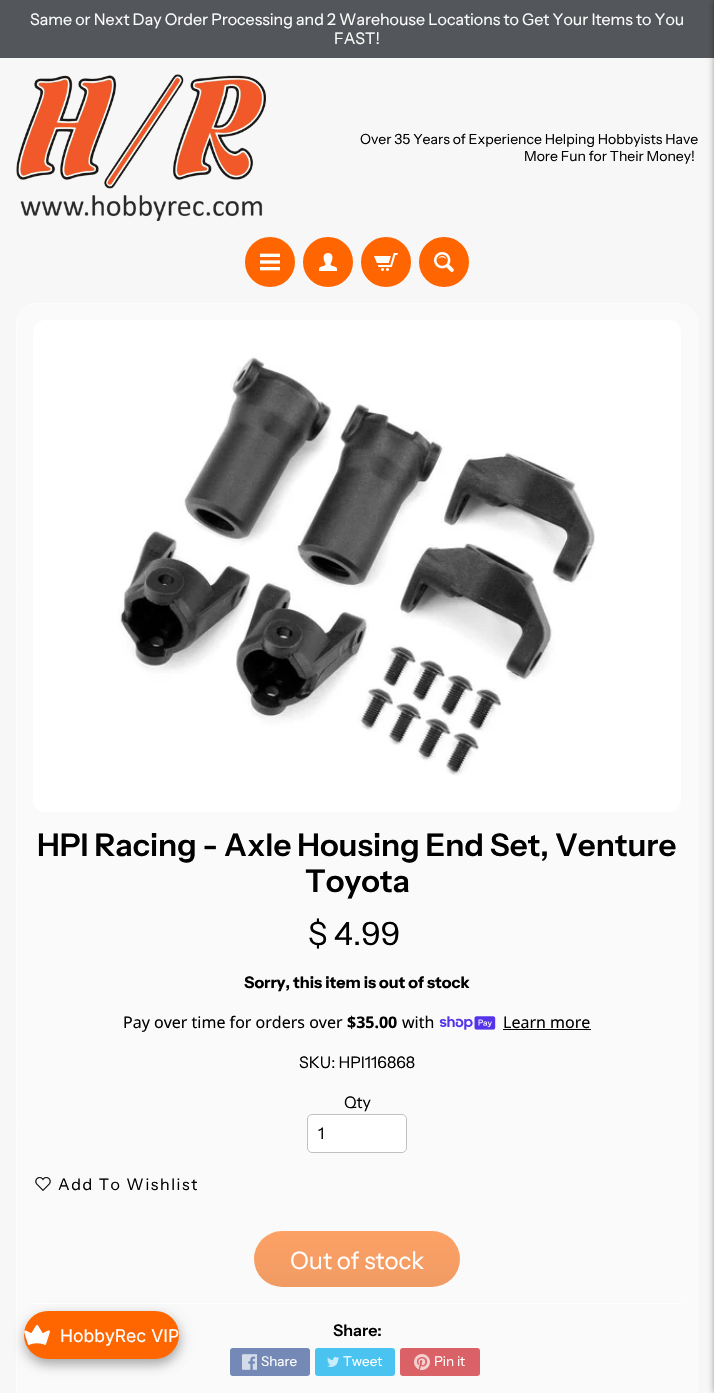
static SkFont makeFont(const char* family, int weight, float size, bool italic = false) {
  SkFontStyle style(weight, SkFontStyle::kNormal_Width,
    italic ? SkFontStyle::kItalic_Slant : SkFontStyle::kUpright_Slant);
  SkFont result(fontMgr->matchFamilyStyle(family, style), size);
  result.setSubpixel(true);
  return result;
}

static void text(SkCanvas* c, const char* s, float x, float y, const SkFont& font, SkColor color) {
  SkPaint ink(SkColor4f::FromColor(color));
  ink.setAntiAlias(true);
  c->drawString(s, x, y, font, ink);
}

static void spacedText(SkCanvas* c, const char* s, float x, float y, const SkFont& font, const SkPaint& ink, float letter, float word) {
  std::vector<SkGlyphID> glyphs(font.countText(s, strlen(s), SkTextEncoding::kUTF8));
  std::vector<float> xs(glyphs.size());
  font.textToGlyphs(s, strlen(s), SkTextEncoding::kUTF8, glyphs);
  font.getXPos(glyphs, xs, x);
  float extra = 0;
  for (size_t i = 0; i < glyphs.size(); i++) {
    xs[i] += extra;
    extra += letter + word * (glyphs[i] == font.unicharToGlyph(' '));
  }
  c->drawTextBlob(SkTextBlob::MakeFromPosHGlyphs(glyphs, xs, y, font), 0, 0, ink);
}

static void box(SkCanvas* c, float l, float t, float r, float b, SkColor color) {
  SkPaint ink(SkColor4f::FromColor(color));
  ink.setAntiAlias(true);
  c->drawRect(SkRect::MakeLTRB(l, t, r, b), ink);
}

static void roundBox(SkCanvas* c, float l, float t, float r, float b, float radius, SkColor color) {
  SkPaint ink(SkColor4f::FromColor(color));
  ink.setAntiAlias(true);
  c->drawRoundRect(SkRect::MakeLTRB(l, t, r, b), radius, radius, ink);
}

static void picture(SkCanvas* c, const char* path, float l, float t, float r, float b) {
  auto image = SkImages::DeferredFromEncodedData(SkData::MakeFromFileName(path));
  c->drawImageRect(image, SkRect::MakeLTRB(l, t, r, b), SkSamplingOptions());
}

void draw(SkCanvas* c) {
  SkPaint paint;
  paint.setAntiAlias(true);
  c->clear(0xfff7f7f7);
  box(c, 0, 0, 714, 58, 0xff53565a);
  SkFont face1 = makeFont("Instrument Sans", 400, 16);
  text(c, "Same or Next Day Order Processing and 2 Warehouse Locations to Get Your Items to You", 30, 25, face1, 0xffffffff);
  text(c, "FAST!", 334, 44, face1, 0xffffffff);
  picture(c, "img_01.png", 16, 74, 266, 221);
  SkFont face2 = makeFont("Instrument Sans", 400, 14);
  text(c, "Over 35 Years of Experience Helping Hobbyists Have", 360, 144, face2, 0xff000000);
  text(c, "More Fun for Their Money!", 524, 161, face2, 0xff000000);
  paint.setColor(0xffff6501);
  c->drawCircle(270, 262, 23.5f, paint);
  paint.setStyle(SkPaint::kStroke_Style);
  paint.setStrokeWidth(3);
  c->drawCircle(270, 262, 23.5f, paint);
  picture(c, "img_02.png", 260, 253, 280, 271);
  paint.setStyle(SkPaint::kFill_Style);
  c->drawCircle(328, 262, 23.5f, paint);
  paint.setStyle(SkPaint::kStroke_Style);
  c->drawCircle(328, 262, 23.5f, paint);
  picture(c, "img_03.png", 319, 253, 337, 271);
  paint.setStyle(SkPaint::kFill_Style);
  c->drawCircle(386, 262, 23.5f, paint);
  paint.setStyle(SkPaint::kStroke_Style);
  c->drawCircle(386, 262, 23.5f, paint);
  picture(c, "img_04.png", 374, 253, 398, 271);
  paint.setStyle(SkPaint::kFill_Style);
  c->drawCircle(444, 262, 23.5f, paint);
  paint.setStyle(SkPaint::kStroke_Style);
  c->drawCircle(444, 262, 23.5f, paint);
  picture(c, "img_05.png", 434, 252, 454, 272);
  paint.setStyle(SkPaint::kFill_Style);
  paint.setColor(0xfffafafa);
  c->drawRoundRect(SkRect::MakeLTRB(16.5f, 303.5f, 697.5f, 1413.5f), 19.5f, 19.5f, paint);
  paint.setStyle(SkPaint::kStroke_Style);
  paint.setStrokeWidth(1);
  paint.setColor(0xfffdfdfd);
  c->drawRoundRect(SkRect::MakeLTRB(16.5f, 303.5f, 697.5f, 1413.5f), 19.5f, 19.5f, paint);
  roundBox(c, 33, 320, 681, 812, 12, 0xffffffff);
  picture(c, "img_06.png", 118, 355, 595, 776);
  SkFont face3 = makeFont("Instrument Sans", 600, 31.25f);
  text(c, "HPI Racing - Axle Housing End Set, Venture", 37, 856, face3, 0xff000000);
  text(c, "Toyota", 305, 892, face3, 0xff000000);
  SkFont face4 = makeFont("Instrument Sans", 400, 32);
  text(c, "$ 4.99", 308, 945, face4, 0xff000000);
  SkFont face5 = makeFont("Instrument Sans", 700, 16);
  text(c, "Sorry, this item is out of stock", 244, 988, face5, 0xff000000);
  SkFont face6 = makeFont("Noto Sans", 400, 16);
  text(c, "Pay over time for orders over", 123, 1028, face6, 0xff000000);
  SkFont face7 = makeFont("Noto Sans", 700, 16);
  text(c, "$35.00", 347, 1028, face7, 0xff000000);
  text(c, "with", 402, 1028, face6, 0xff000000);
  picture(c, "img_07.png", 439, 1016, 496, 1030);
  text(c, "Learn more", 503, 1028, face6, 0xff000000);
  box(c, 503, 1029, 591, 1030, 0xff000000);
  text(c, "SKU: HPI116868", 299, 1068, face1, 0xff000000);
  text(c, "Qty", 344, 1108, face1, 0xff000000);
  paint.setStyle(SkPaint::kFill_Style);
  paint.setColor(0xffffffff);
  c->drawRoundRect(SkRect::MakeLTRB(307.5f, 1114.5f, 406.5f, 1152.5f), 4.5f, 4.5f, paint);
  paint.setStyle(SkPaint::kStroke_Style);
  paint.setColor(0xffc0c0c0);
  c->drawRoundRect(SkRect::MakeLTRB(307.5f, 1114.5f, 406.5f, 1152.5f), 4.5f, 4.5f, paint);
  text(c, "1", 318, 1139, face1, 0xff000000);
  picture(c, "img_08.png", 35, 1177, 51, 1191);
  paint.setStyle(SkPaint::kFill_Style);
  paint.setColor(0xff000000);
  spacedText(c, "Add To Wishlist", 58, 1190, face1, paint, 1.6f, 0);
  {
    const SkColor colors[] = {0xfffda165, 0xfff09b64};
    const float stops[] = {0, 1};
    const SkPoint ends[] = {{357, 1231}, {357, 1287}};
    paint.setShader(SkGradientShader::MakeLinear(ends, colors, stops, 2, SkTileMode::kClamp));
    paint.setAlpha(255);
  }
  c->drawRoundRect(SkRect::MakeLTRB(254, 1231, 460, 1287), 28, 28, paint);
  SkFont face8 = makeFont("Instrument Sans", 400, 24);
  text(c, "Out of stock", 290, 1269, face8, 0xffffffff);
  box(c, 33, 1303, 681, 1304, 0xffffffff);
  SkFont face9 = makeFont("Instrument Sans", 600, 16);
  text(c, "Share:", 333, 1336, face9, 0xff000000);
  roundBox(c, 230, 1348, 310, 1376, 3, 0xff7489b5);
  picture(c, "img_09.png", 242, 1354, 257, 1370);
  SkFont face10 = makeFont("Instrument Sans", 400, 13.5f);
  text(c, "Share", 261, 1366, face10, 0xffffffff);
  roundBox(c, 315, 1348, 395, 1376, 3, 0xff4bc3f1);
  picture(c, "img_10.png", 327, 1357, 339, 1367);
  text(c, "Tweet", 343, 1366, face10, 0xffffffff);
  roundBox(c, 400, 1348, 480, 1376, 3, 0xffda6266);
  picture(c, "img_11.png", 414, 1354, 430, 1370);
  text(c, "Pin it", 434, 1366, face10, 0xffffffff);
  paint.setShader(nullptr);
  paint.setColor(0x80000000);
  paint.setMaskFilter(SkMaskFilter::MakeBlur(kNormal_SkBlurStyle, 3.5f));
  c->drawRect(SkRect::MakeLTRB(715, 0, 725, 1393), paint);
  paint.setMaskFilter(nullptr);
  paint.setColor(0x1a000000);
  paint.setMaskFilter(SkMaskFilter::MakeBlur(kNormal_SkBlurStyle, 6));
  c->drawRoundRect(SkRect::MakeLTRB(27, 1314, 182, 1362), 24, 24, paint);
  paint.setMaskFilter(nullptr);
  paint.setColor(0x40000000);
  paint.setMaskFilter(SkMaskFilter::MakeBlur(kNormal_SkBlurStyle, 6));
  c->drawRoundRect(SkRect::MakeLTRB(24, 1317, 179, 1365), 24, 24, paint);
  paint.setMaskFilter(nullptr);
  roundBox(c, 24, 1311, 179, 1359, 24, 0xffff6600);
  picture(c, "img_12.png", 24, 1325, 50, 1345);
  SkFont face11 = makeFont("Inter", 400, 17.5f);
  text(c, "HobbyRec VIP", 60, 1342, face11, 0xffffffff);
}
